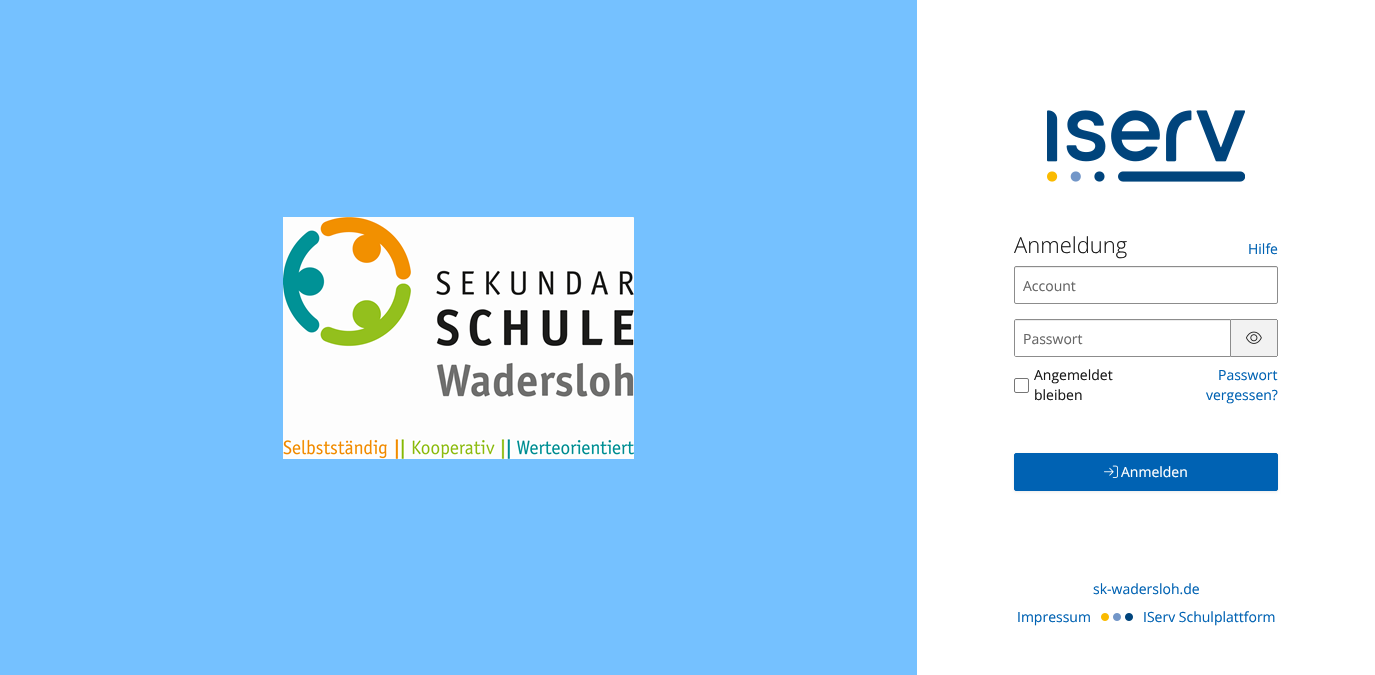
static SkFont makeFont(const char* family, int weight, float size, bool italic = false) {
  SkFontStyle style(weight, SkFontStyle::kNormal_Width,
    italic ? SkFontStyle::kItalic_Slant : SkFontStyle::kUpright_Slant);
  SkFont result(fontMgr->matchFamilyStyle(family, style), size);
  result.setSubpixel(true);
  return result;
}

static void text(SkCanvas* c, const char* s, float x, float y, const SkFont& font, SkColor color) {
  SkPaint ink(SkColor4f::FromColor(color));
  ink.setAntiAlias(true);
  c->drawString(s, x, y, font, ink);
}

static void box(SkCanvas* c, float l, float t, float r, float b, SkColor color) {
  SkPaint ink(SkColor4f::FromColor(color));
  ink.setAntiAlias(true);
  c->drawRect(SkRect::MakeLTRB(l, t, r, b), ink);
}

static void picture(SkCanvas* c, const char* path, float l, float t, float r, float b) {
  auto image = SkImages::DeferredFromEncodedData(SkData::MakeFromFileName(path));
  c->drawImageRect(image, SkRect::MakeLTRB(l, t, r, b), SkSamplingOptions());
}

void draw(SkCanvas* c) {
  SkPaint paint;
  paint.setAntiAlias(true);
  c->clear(0xffffffff);
  box(c, 0, 0, 917, 675, 0xff75c1ff);
  picture(c, "img_01.png", 283, 217, 634, 459);
  picture(c, "img_02.png", 1047, 110, 1245, 182);
  SkFont face1 = makeFont("Open Sans", 300, 22);
  text(c, "Anmeldung", 1014, 253, face1, 0xff1a1a1a);
  SkFont face2 = makeFont("Open Sans", 400, 14);
  text(c, "Hilfe", 1248, 254, face2, 0xff0062b3);
  paint.setColor(0xffececec);
  c->drawPath(SkPathBuilder().moveTo(1016, 268).lineTo(1277, 268).lineTo(1276, 267).lineTo(1016, 267).cubicTo(1015, 267, 1015, 268, 1015, 269).close().detach(), paint);
  paint.setStyle(SkPaint::kStroke_Style);
  paint.setStrokeWidth(1);
  paint.setColor(0xff8c8c8c);
  c->drawRoundRect(SkRect::MakeLTRB(1014.5f, 266.5f, 1277.5f, 303.5f), 1.5f, 1.5f, paint);
  text(c, "Account", 1023, 291, face2, 0xff666666);
  paint.setStyle(SkPaint::kFill_Style);
  paint.setColor(0xffececec);
  c->drawPath(SkPathBuilder().moveTo(1016, 321).lineTo(1230, 321).lineTo(1230, 320).lineTo(1015, 320).lineTo(1015, 322).close().detach(), paint);
  paint.setStyle(SkPaint::kStroke_Style);
  paint.setColor(0xff8c8c8c);
  c->drawPath(SkPathBuilder().moveTo(1016, 319.5f).lineTo(1230.5f, 319.5f).lineTo(1230.5f, 356.5f).lineTo(1016, 356.5f).cubicTo(1015, 356.5f, 1014.5f, 356, 1014.5f, 355).lineTo(1014.5f, 321).cubicTo(1014.5f, 320, 1015, 319.5f, 1016, 319.5f).close().detach(), paint);
  text(c, "Passwort", 1023, 344, face2, 0xff666666);
  paint.setStyle(SkPaint::kFill_Style);
  paint.setColor(0xfff2f2f2);
  c->drawPath(SkPathBuilder().moveTo(1231, 319).lineTo(1276, 319).cubicTo(1277, 319, 1278, 320, 1278, 321).lineTo(1278, 355).cubicTo(1278, 356, 1277, 357, 1276, 357).lineTo(1231, 357).close().detach(), paint);
  box(c, 1231, 319, 1277, 320, 0xff8c8c8c);
  box(c, 1277, 320, 1278, 356, 0xff8c8c8c);
  box(c, 1231, 356, 1277, 357, 0xff8c8c8c);
  picture(c, "img_03.png", 1246, 331, 1262, 344);
  text(c, "Angemeldet", 1034, 380, face2, 0xff1a1a1a);
  paint.setStyle(SkPaint::kStroke_Style);
  paint.setColor(0xff767676);
  c->drawRoundRect(SkRect::MakeLTRB(1014.5f, 378.5f, 1028.5f, 392.5f), 1.5f, 1.5f, paint);
  text(c, "bleiben", 1034, 400, face2, 0xff1a1a1a);
  text(c, "Passwort", 1218, 380, face2, 0xff0062b3);
  text(c, "vergessen?", 1206, 400, face2, 0xff0062b3);
  paint.setStyle(SkPaint::kFill_Style);
  paint.setColor(0x14000000);
  paint.setMaskFilter(SkMaskFilter::MakeBlur(kNormal_SkBlurStyle, 1.5f));
  c->drawRoundRect(SkRect::MakeLTRB(1014, 454, 1278, 492), 2, 2, paint);
  paint.setMaskFilter(nullptr);
  paint.setColor(0xff0062b3);
  c->drawRoundRect(SkRect::MakeLTRB(1014.5f, 453.5f, 1277.5f, 490.5f), 1.5f, 1.5f, paint);
  paint.setStyle(SkPaint::kStroke_Style);
  c->drawRoundRect(SkRect::MakeLTRB(1014.5f, 453.5f, 1277.5f, 490.5f), 1.5f, 1.5f, paint);
  picture(c, "img_04.png", 1104, 465, 1118, 478);
  text(c, "Anmelden", 1121, 477, face2, 0xffffffff);
  text(c, "sk-wadersloh.de", 1093, 594, face2, 0xff0062b3);
  text(c, "Impressum", 1017, 622, face2, 0xff0062b3);
  picture(c, "img_05.png", 1101, 613, 1109, 621);
  picture(c, "img_06.png", 1113, 613, 1121, 621);
  picture(c, "img_07.png", 1125, 613, 1133, 621);
  text(c, "IServ Schulplattform", 1143, 622, face2, 0xff0062b3);
}
